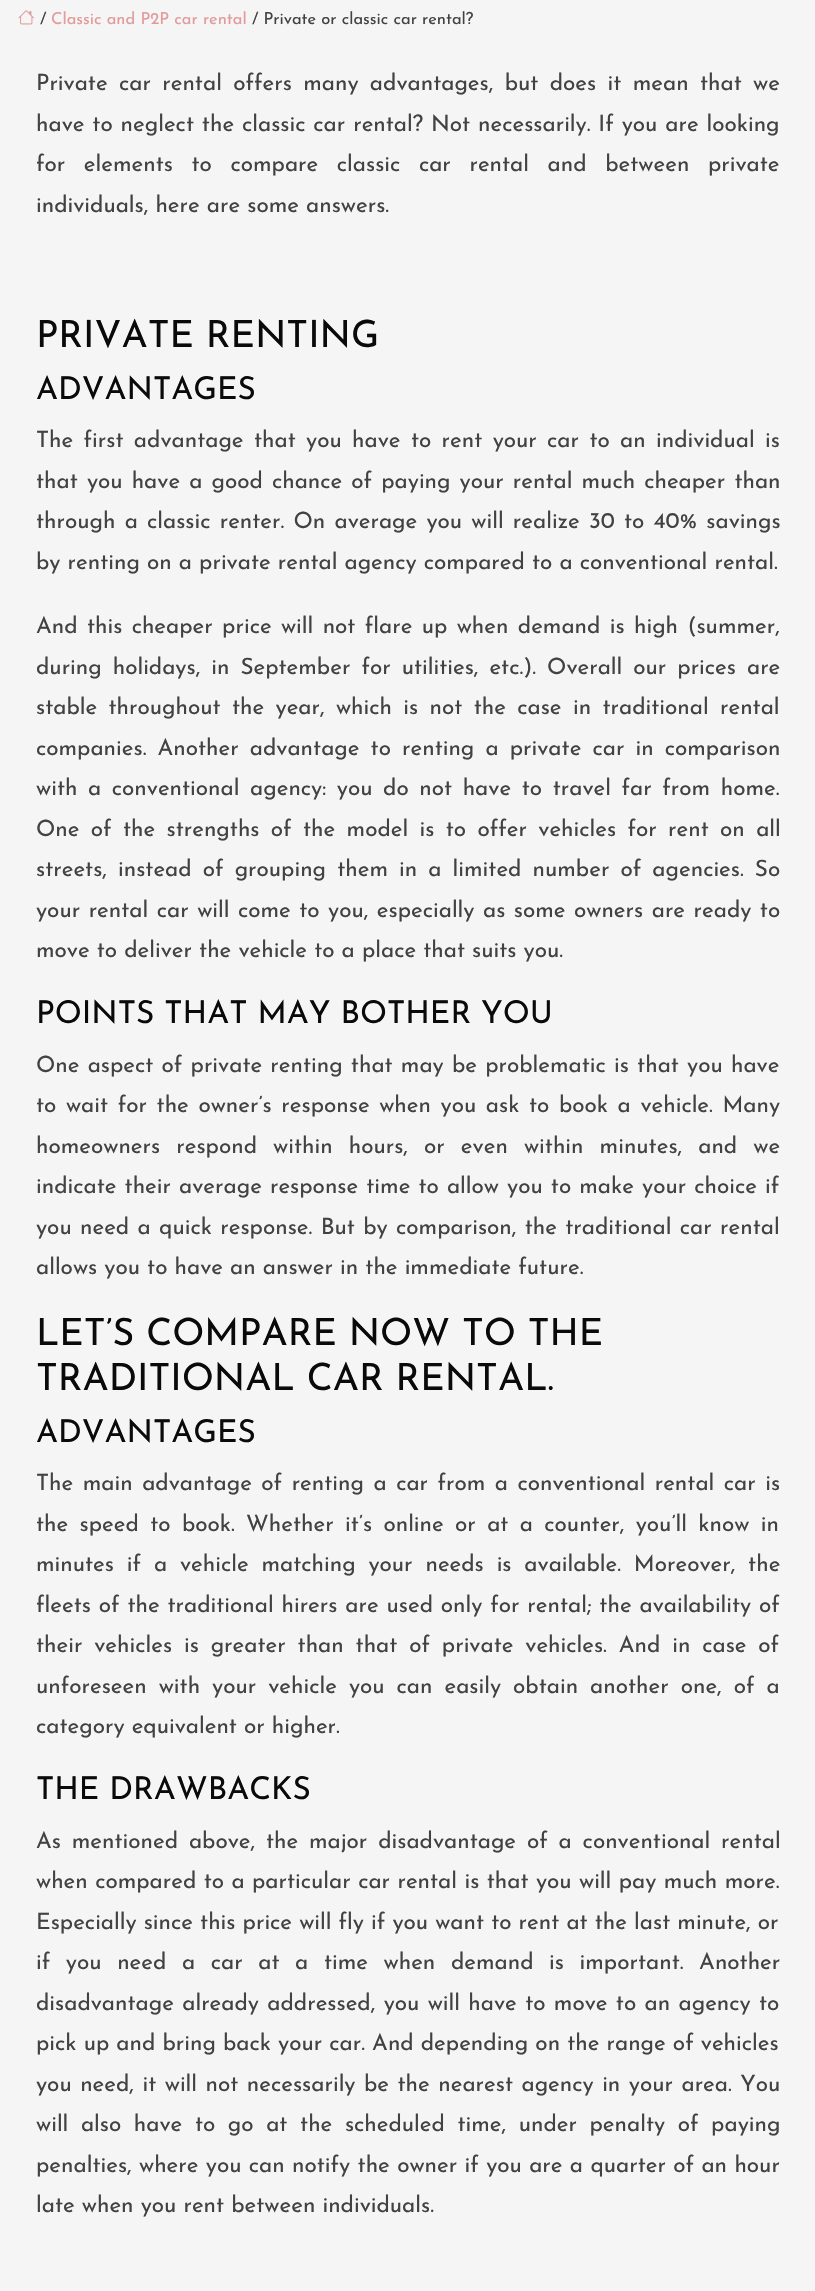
static SkFont makeFont(const char* family, int weight, float size, bool italic = false) {
  SkFontStyle style(weight, SkFontStyle::kNormal_Width,
    italic ? SkFontStyle::kItalic_Slant : SkFontStyle::kUpright_Slant);
  SkFont result(fontMgr->matchFamilyStyle(family, style), size);
  result.setSubpixel(true);
  return result;
}

static void text(SkCanvas* c, const char* s, float x, float y, const SkFont& font, SkColor color) {
  SkPaint ink(SkColor4f::FromColor(color));
  ink.setAntiAlias(true);
  c->drawString(s, x, y, font, ink);
}

static void spacedText(SkCanvas* c, const char* s, float x, float y, const SkFont& font, const SkPaint& ink, float letter, float word) {
  std::vector<SkGlyphID> glyphs(font.countText(s, strlen(s), SkTextEncoding::kUTF8));
  std::vector<float> xs(glyphs.size());
  font.textToGlyphs(s, strlen(s), SkTextEncoding::kUTF8, glyphs);
  font.getXPos(glyphs, xs, x);
  float extra = 0;
  for (size_t i = 0; i < glyphs.size(); i++) {
    xs[i] += extra;
    extra += letter + word * (glyphs[i] == font.unicharToGlyph(' '));
  }
  c->drawTextBlob(SkTextBlob::MakeFromPosHGlyphs(glyphs, xs, y, font), 0, 0, ink);
}

static void picture(SkCanvas* c, const char* path, float l, float t, float r, float b) {
  auto image = SkImages::DeferredFromEncodedData(SkData::MakeFromFileName(path));
  c->drawImageRect(image, SkRect::MakeLTRB(l, t, r, b), SkSamplingOptions());
}

void draw(SkCanvas* c) {
  SkPaint paint;
  paint.setAntiAlias(true);
  c->clear(0xfff5f5f5);
  picture(c, "img_01.png", 18, 10, 34, 25);
  SkFont face1 = makeFont("Josefin Sans", 100, 16.5f);
  text(c, "/", 40, 24, face1, 0xff424242);
  text(c, "Classic and P2P car rental", 51, 24, face1, 0xffe29a9a);
  text(c, "/ Private or classic car rental?", 252, 24, face1, 0xff424242);
  SkFont face2 = makeFont("Josefin Sans", 100, 22.5f);
  paint.setColor(0xff424242);
  spacedText(c, "Private car rental offers many advantages, but does it mean that we", 36, 90, face2, paint, 0, 4.25f);
  spacedText(c, "have to neglect the classic car rental? Not necessarily. If you are looking", 36, 131, face2, paint, 0, 0.8f);
  spacedText(c, "for elements to compare classic car rental and between private", 36, 171, face2, paint, 0, 11.5f);
  text(c, "individuals, here are some answers.", 36, 212, face2, 0xff424242);
  SkFont face3 = makeFont("Josefin Sans", 100, 37.5f);
  text(c, "PRIVATE RENTING", 36, 347, face3, 0xff0a0a0a);
  SkFont face4 = makeFont("Josefin Sans", 100, 31.5f);
  text(c, "ADVANTAGES", 36, 399, face4, 0xff0a0a0a);
  spacedText(c, "The first advantage that you have to rent your car to an individual is", 36, 447, face2, paint, 0, 3.25f);
  spacedText(c, "that you have a good chance of paying your rental much cheaper than", 36, 488, face2, paint, 0, 2);
  spacedText(c, "through a classic renter. On average you will realize 30 to 40% savings", 36, 528, face2, paint, 0, 2.1f);
  text(c, "by renting on a private rental agency compared to a conventional rental.", 36, 569, face2, 0xff424242);
  spacedText(c, "And this cheaper price will not flare up when demand is high (summer,", 36, 633, face2, paint, 0, 2.25f);
  spacedText(c, "during holidays, in September for utilities, etc.). Overall our prices are", 36, 674, face2, paint, 0, 3.9f);
  spacedText(c, "stable throughout the year, which is not the case in traditional rental", 36, 714, face2, paint, 0, 4.25f);
  spacedText(c, "companies. Another advantage to renting a private car in comparison", 36, 755, face2, paint, 0, 4);
  spacedText(c, "with a conventional agency: you do not have to travel far from home.", 36, 795, face2, paint, 0, 3.5f);
  spacedText(c, "One of the strengths of the model is to offer vehicles for rent on all", 36, 836, face2, paint, 0, 4.25f);
  spacedText(c, "streets, instead of grouping them in a limited number of agencies. So", 36, 876, face2, paint, 0, 4);
  spacedText(c, "your rental car will come to you, especially as some owners are ready to", 36, 917, face2, paint, 0, 1.4f);
  text(c, "move to deliver the vehicle to a place that suits you.", 36, 957, face2, 0xff424242);
  text(c, "POINTS THAT MAY BOTHER YOU", 36, 1023, face4, 0xff0a0a0a);
  spacedText(c, "One aspect of private renting that may be problematic is that you have", 36, 1072, face2, paint, 0, 1.1f);
  spacedText(c, "to wait for the owner’s response when you ask to book a vehicle. Many", 36, 1112, face2, paint, 0, 2.5f);
  spacedText(c, "homeowners respond within hours, or even within minutes, and we", 36, 1153, face2, paint, 0, 9);
  spacedText(c, "indicate their average response time to allow you to make your choice if", 36, 1193, face2, paint, 0, 1);
  spacedText(c, "you need a quick response. But by comparison, the traditional car rental", 36, 1234, face2, paint, 0, 1.25f);
  text(c, "allows you to have an answer in the immediate future.", 36, 1274, face2, 0xff424242);
  text(c, "LET’S COMPARE NOW TO THE", 36, 1345, face3, 0xff0a0a0a);
  text(c, "TRADITIONAL CAR RENTAL.", 36, 1390, face3, 0xff0a0a0a);
  text(c, "ADVANTAGES", 36, 1442, face4, 0xff0a0a0a);
  spacedText(c, "The main advantage of renting a car from a conventional rental car is", 36, 1490, face2, paint, 0, 2.4f);
  spacedText(c, "the speed to book. Whether it’s online or at a counter, you’ll know in", 36, 1531, face2, paint, 0, 4.25f);
  spacedText(c, "minutes if a vehicle matching your needs is available. Moreover, the", 36, 1571, face2, paint, 0, 5.75f);
  spacedText(c, "fleets of the traditional hirers are used only for rental; the availability of", 36, 1612, face2, paint, 0, 0.75f);
  spacedText(c, "their vehicles is greater than that of private vehicles. And in case of", 36, 1652, face2, paint, 0, 4.75f);
  spacedText(c, "unforeseen with your vehicle you can easily obtain another one, of a", 36, 1693, face2, paint, 0, 4.9f);
  text(c, "category equivalent or higher.", 36, 1733, face2, 0xff424242);
  text(c, "THE DRAWBACKS", 36, 1799, face4, 0xff0a0a0a);
  spacedText(c, "As mentioned above, the major disadvantage of a conventional rental", 36, 1848, face2, paint, 0, 3.75f);
  spacedText(c, "when compared to a particular car rental is that you will pay much more.", 36, 1888, face2, paint, 0, 0.3f);
  text(c, "Especially since this price will fly if you want to rent at the last minute, or", 36, 1929, face2, 0xff424242);
  spacedText(c, "if you need a car at a time when demand is important. Another", 36, 1969, face2, paint, 0, 8.5f);
  spacedText(c, "disadvantage already addressed, you will have to move to an agency to", 36, 2010, face2, paint, 0, 1.25f);
  text(c, "pick up and bring back your car. And depending on the range of vehicles", 36, 2050, face2, 0xff424242);
  spacedText(c, "you need, it will not necessarily be the nearest agency in your area. You", 36, 2091, face2, paint, 0, 1.4f);
  spacedText(c, "will also have to go at the scheduled time, under penalty of paying", 36, 2131, face2, paint, 0, 5.5f);
  spacedText(c, "penalties, where you can notify the owner if you are a quarter of an hour", 36, 2172, face2, paint, 0, 0.25f);
  text(c, "late when you rent between individuals.", 36, 2212, face2, 0xff424242);
}
